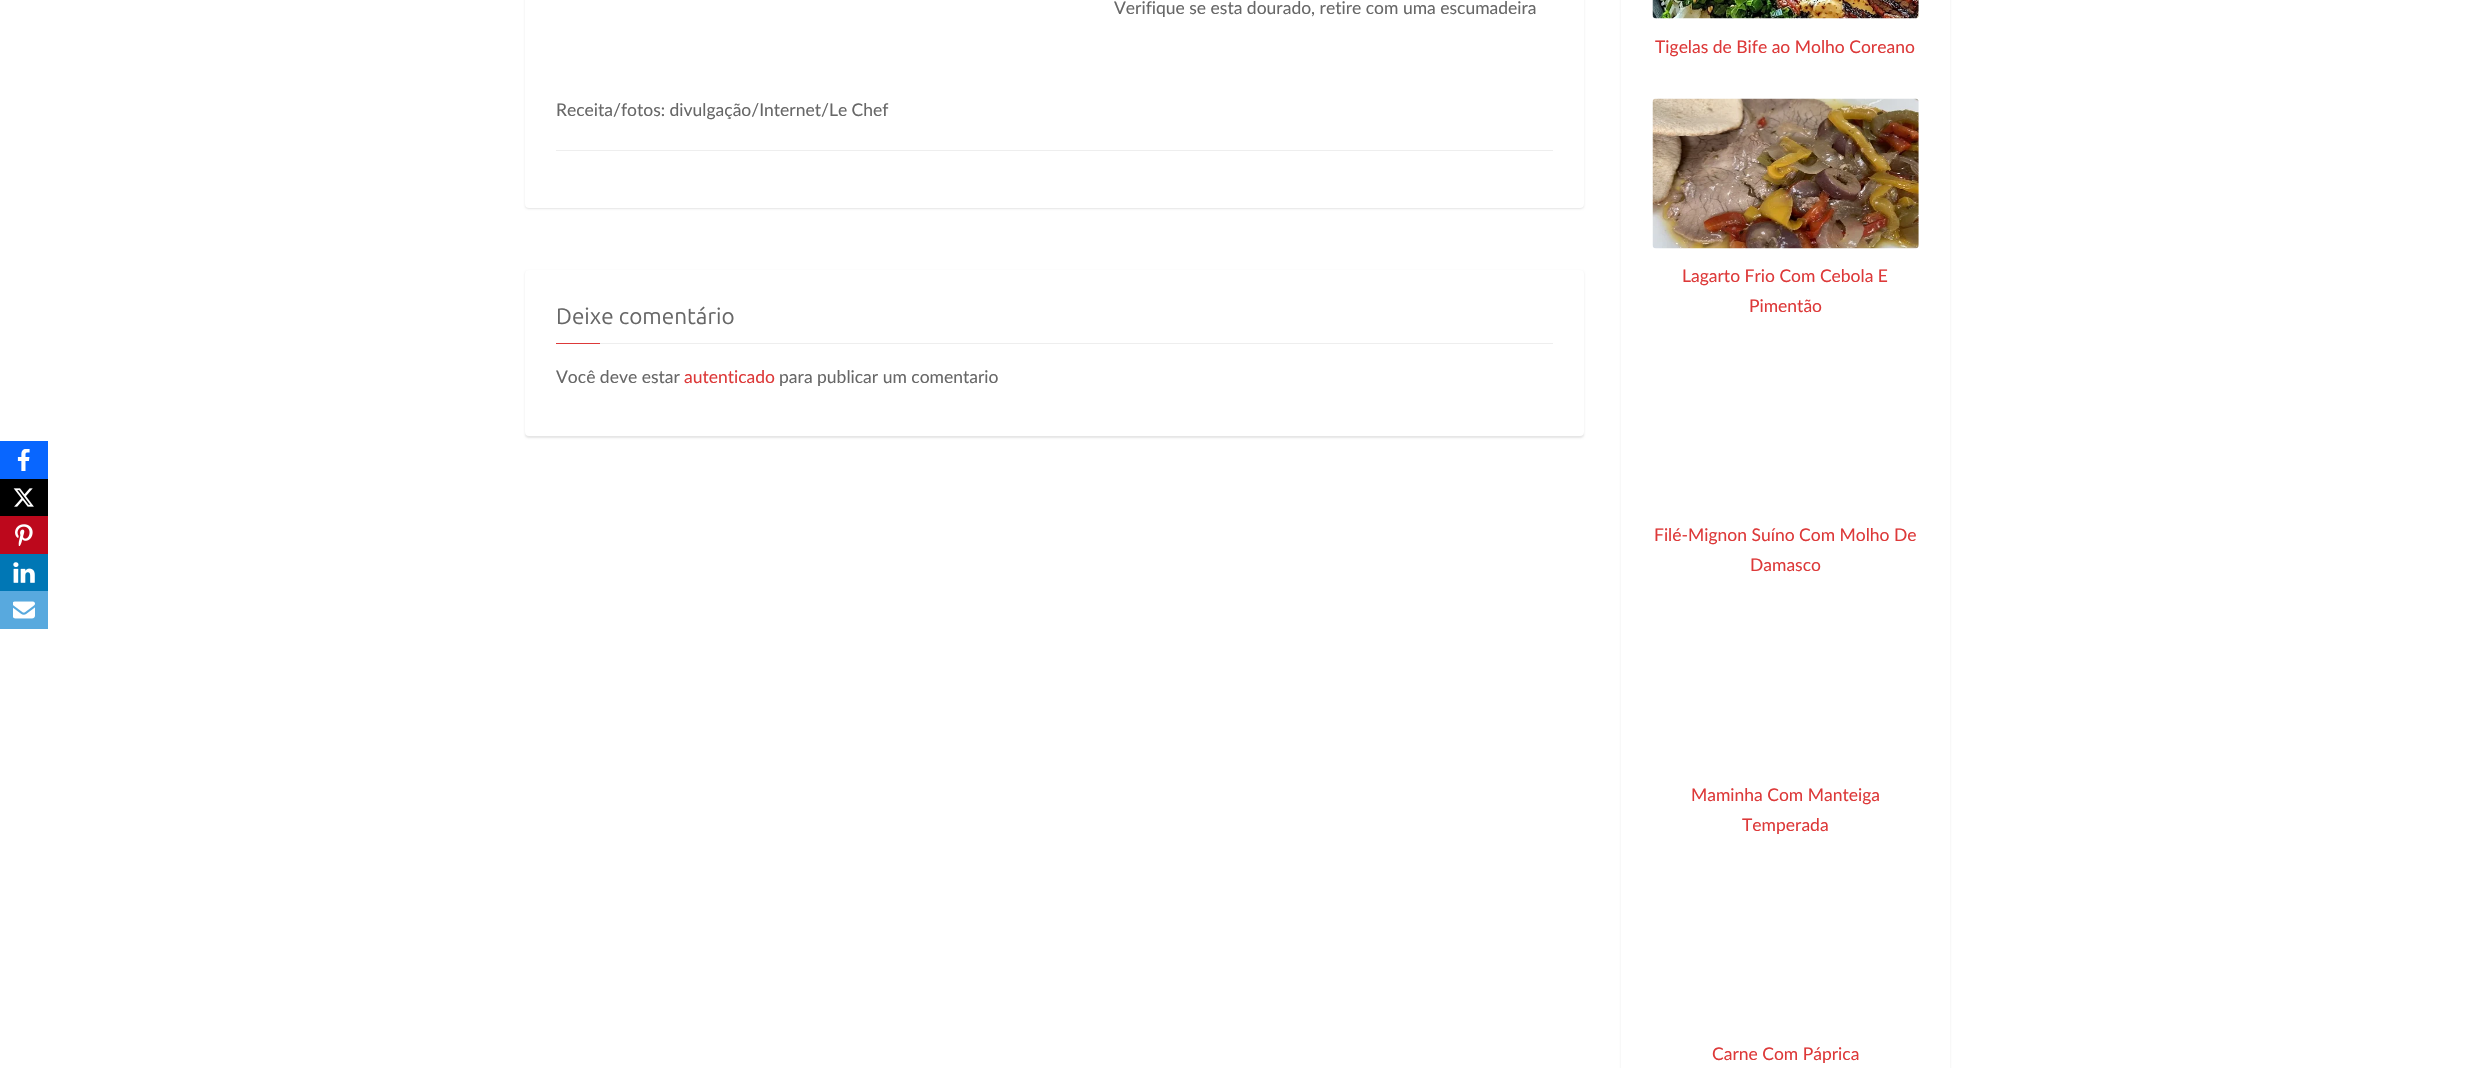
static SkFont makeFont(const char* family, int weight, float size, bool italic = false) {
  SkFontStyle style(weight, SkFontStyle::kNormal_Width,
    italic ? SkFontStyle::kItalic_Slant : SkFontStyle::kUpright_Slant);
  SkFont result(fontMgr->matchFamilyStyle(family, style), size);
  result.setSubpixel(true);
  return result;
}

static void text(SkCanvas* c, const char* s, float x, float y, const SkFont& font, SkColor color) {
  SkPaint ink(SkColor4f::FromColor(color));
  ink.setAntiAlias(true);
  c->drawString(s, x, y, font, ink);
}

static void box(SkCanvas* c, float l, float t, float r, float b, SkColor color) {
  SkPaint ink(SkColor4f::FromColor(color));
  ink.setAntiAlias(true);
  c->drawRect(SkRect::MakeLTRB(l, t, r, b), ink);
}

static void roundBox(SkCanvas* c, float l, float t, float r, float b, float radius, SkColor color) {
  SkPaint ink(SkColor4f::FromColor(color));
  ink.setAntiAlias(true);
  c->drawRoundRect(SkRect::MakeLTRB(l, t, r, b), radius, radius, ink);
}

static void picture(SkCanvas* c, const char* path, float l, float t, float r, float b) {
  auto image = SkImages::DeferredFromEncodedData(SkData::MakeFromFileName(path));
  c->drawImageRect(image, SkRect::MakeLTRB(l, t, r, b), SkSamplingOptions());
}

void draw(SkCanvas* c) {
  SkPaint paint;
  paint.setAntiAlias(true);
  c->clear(0xffffffff);
  box(c, 0, 441, 48, 479, 0xff0866ff);
  picture(c, "img_01.png", 17, 449, 30, 471);
  box(c, 0, 479, 48, 516, 0xff000000);
  picture(c, "img_02.png", 13, 488, 34, 507);
  box(c, 0, 516, 48, 554, 0xffbd081c);
  picture(c, "img_03.png", 15, 524, 33, 546);
  box(c, 0, 554, 48, 591, 0xff0077b5);
  picture(c, "img_04.png", 13, 562, 35, 583);
  box(c, 0, 591, 48, 629, 0xff58a9de);
  picture(c, "img_05.png", 13, 601, 35, 619);
  paint.setColor(0x1a000000);
  paint.setMaskFilter(SkMaskFilter::MakeBlur(kNormal_SkBlurStyle, 1));
  c->drawRoundRect(SkRect::MakeLTRB(525, -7, 1584, 209), 4, 4, paint);
  paint.setMaskFilter(nullptr);
  roundBox(c, 525, -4, 1584, 208, 4, 0xffffffff);
  SkFont face1 = makeFont("Lato", 400, 17.5f);
  text(c, "Verifique se esta dourado, retire com uma escumadeira", 1114, 14, face1, 0xff676767);
  text(c, "Receita/fotos: divulgação/Internet/Le Chef", 556, 116, face1, 0xff676767);
  box(c, 556, 150, 1553, 151, 0xffeeeeee);
  paint.setMaskFilter(SkMaskFilter::MakeBlur(kNormal_SkBlurStyle, 1));
  c->drawRoundRect(SkRect::MakeLTRB(525, 271, 1584, 438), 4, 4, paint);
  paint.setMaskFilter(nullptr);
  roundBox(c, 525, 270, 1584, 436, 4, 0xffffffff);
  box(c, 600, 343, 1553, 344, 0xffeeeeee);
  SkFont face2 = makeFont("Ubuntu", 400, 22.5f);
  text(c, "Deixe comentário", 556, 324, face2, 0xff676767);
  box(c, 556, 343, 600, 344, 0xffdd3939);
  text(c, "Você deve estar", 556, 383, face1, 0xff676767);
  text(c, "autenticado", 684, 383, face1, 0xffdd3939);
  text(c, "para publicar um comentario", 779, 383, face1, 0xff676767);
  paint.setMaskFilter(SkMaskFilter::MakeBlur(kNormal_SkBlurStyle, 1));
  c->drawRoundRect(SkRect::MakeLTRB(1621, -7, 1950, 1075), 4, 4, paint);
  paint.setMaskFilter(nullptr);
  box(c, 1621, 0, 1950, 1068, 0xffffffff);
  picture(c, "img_06.png", 1652, 0, 1919, 19);
  text(c, "Tigelas de Bife ao Molho Coreano", 1655, 53, face1, 0xffdd3939);
  picture(c, "img_07.png", 1652, 98, 1919, 249);
  text(c, "Lagarto Frio Com Cebola E", 1682, 282, face1, 0xffdd3939);
  text(c, "Pimentão", 1749, 312, face1, 0xffdd3939);
  text(c, "Filé-Mignon Suíno Com Molho De", 1654, 541, face1, 0xffdd3939);
  text(c, "Damasco", 1750, 571, face1, 0xffdd3939);
  text(c, "Maminha Com Manteiga", 1691, 801, face1, 0xffdd3939);
  text(c, "Temperada", 1742, 831, face1, 0xffdd3939);
  text(c, "Carne Com Páprica", 1712, 1060, face1, 0xffdd3939);
}
